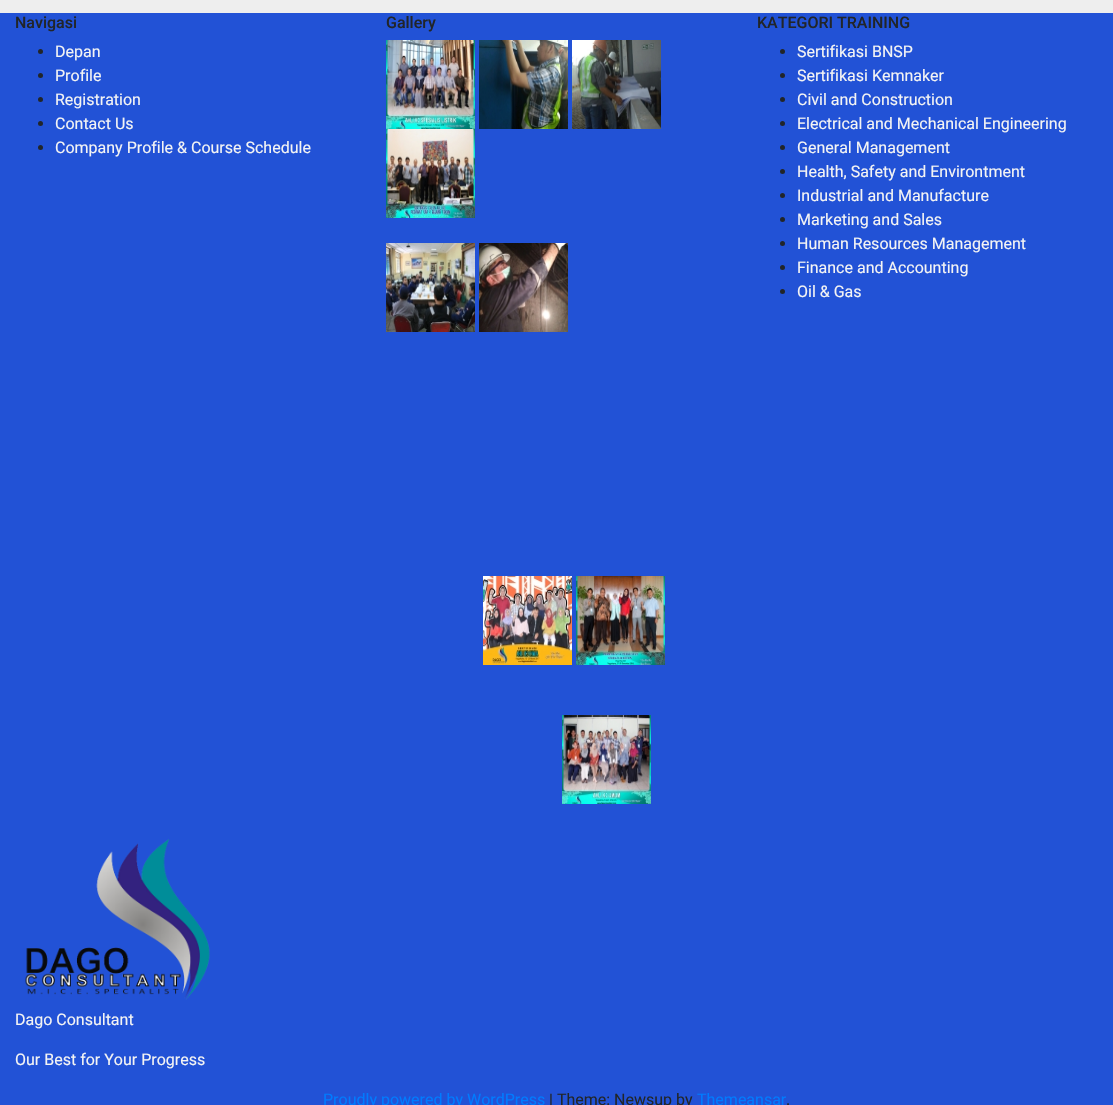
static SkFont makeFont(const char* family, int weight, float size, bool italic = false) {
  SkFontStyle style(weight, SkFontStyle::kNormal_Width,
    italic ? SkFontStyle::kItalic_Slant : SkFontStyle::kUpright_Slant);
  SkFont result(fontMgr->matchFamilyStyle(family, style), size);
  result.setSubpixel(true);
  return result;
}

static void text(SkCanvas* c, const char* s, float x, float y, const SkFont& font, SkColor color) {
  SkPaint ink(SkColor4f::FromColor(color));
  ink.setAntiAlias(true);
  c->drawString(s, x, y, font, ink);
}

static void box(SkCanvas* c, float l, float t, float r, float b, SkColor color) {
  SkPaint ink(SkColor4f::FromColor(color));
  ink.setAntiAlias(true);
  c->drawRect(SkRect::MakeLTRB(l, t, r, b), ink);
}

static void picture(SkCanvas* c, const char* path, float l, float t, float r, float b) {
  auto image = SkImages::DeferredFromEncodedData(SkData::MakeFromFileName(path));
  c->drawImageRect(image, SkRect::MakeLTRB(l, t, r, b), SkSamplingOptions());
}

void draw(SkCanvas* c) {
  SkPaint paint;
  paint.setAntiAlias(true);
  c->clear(0xffeeeeee);
  box(c, 0, 13, 1113, 1105, 0xff2252d6);
  SkFont face1 = makeFont("Roboto", 500, 16);
  text(c, "Navigasi", 15, 28, face1, 0xff212529);
  paint.setColor(0xff212529);
  c->drawCircle(40.5f, 51.5f, 2.5f, paint);
  SkFont face2 = makeFont("Roboto", 400, 16);
  text(c, "Depan", 55, 57, face2, 0xfff4f4f4);
  c->drawCircle(40.5f, 75.5f, 2.5f, paint);
  text(c, "Profile", 55, 81, face2, 0xfff4f4f4);
  c->drawCircle(40.5f, 99.5f, 2.5f, paint);
  text(c, "Registration", 55, 105, face2, 0xfff4f4f4);
  c->drawCircle(40.5f, 123.5f, 2.5f, paint);
  text(c, "Contact Us", 55, 129, face2, 0xfff4f4f4);
  c->drawCircle(40.5f, 147.5f, 2.5f, paint);
  text(c, "Company Profile & Course Schedule", 55, 153, face2, 0xfff4f4f4);
  text(c, "Gallery", 386, 28, face1, 0xff212529);
  picture(c, "img_01.png", 386, 40, 475, 129);
  picture(c, "img_02.png", 479, 40, 568, 129);
  picture(c, "img_03.png", 572, 40, 661, 129);
  picture(c, "img_04.png", 386, 129, 475, 218);
  picture(c, "img_05.png", 386, 243, 475, 332);
  picture(c, "img_06.png", 479, 243, 568, 332);
  picture(c, "img_07.png", 483, 576, 572, 665);
  picture(c, "img_08.png", 576, 576, 665, 665);
  picture(c, "img_09.png", 562, 715, 651, 804);
  text(c, "KATEGORI TRAINING", 757, 28, face1, 0xff212529);
  c->drawCircle(782.5f, 51.5f, 2.5f, paint);
  text(c, "Sertifikasi BNSP", 797, 57, face2, 0xfff4f4f4);
  c->drawCircle(782.5f, 75.5f, 2.5f, paint);
  text(c, "Sertifikasi Kemnaker", 797, 81, face2, 0xfff4f4f4);
  c->drawCircle(782.5f, 99.5f, 2.5f, paint);
  text(c, "Civil and Construction", 797, 105, face2, 0xfff4f4f4);
  c->drawCircle(782.5f, 123.5f, 2.5f, paint);
  text(c, "Electrical and Mechanical Engineering", 797, 129, face2, 0xfff4f4f4);
  c->drawCircle(782.5f, 147.5f, 2.5f, paint);
  text(c, "General Management", 797, 153, face2, 0xfff4f4f4);
  c->drawCircle(782.5f, 171.5f, 2.5f, paint);
  text(c, "Health, Safety and Environtment", 797, 177, face2, 0xfff4f4f4);
  c->drawCircle(782.5f, 195.5f, 2.5f, paint);
  text(c, "Industrial and Manufacture", 797, 201, face2, 0xfff4f4f4);
  c->drawCircle(782.5f, 219.5f, 2.5f, paint);
  text(c, "Marketing and Sales", 797, 225, face2, 0xfff4f4f4);
  c->drawCircle(782.5f, 243.5f, 2.5f, paint);
  text(c, "Human Resources Management", 797, 249, face2, 0xfff4f4f4);
  c->drawCircle(782.5f, 267.5f, 2.5f, paint);
  text(c, "Finance and Accounting", 797, 273, face2, 0xfff4f4f4);
  c->drawCircle(782.5f, 291.5f, 2.5f, paint);
  text(c, "Oil & Gas", 797, 297, face2, 0xfff4f4f4);
  picture(c, "img_10.png", 25, 839, 210, 1000);
  text(c, "Dago Consultant", 15, 1025, face2, 0xfff4f4f4);
  text(c, "Our Best for Your Progress", 15, 1065, face2, 0xfff4f4f4);
  text(c, "Proudly powered by WordPress", 323, 1105, face2, 0xff007bff);
  text(c, "| Theme: Newsup by", 549, 1105, face2, 0xff212529);
  text(c, "Themeansar", 697, 1105, face2, 0xff007bff);
  text(c, ".", 786, 1105, face2, 0xff212529);
}
